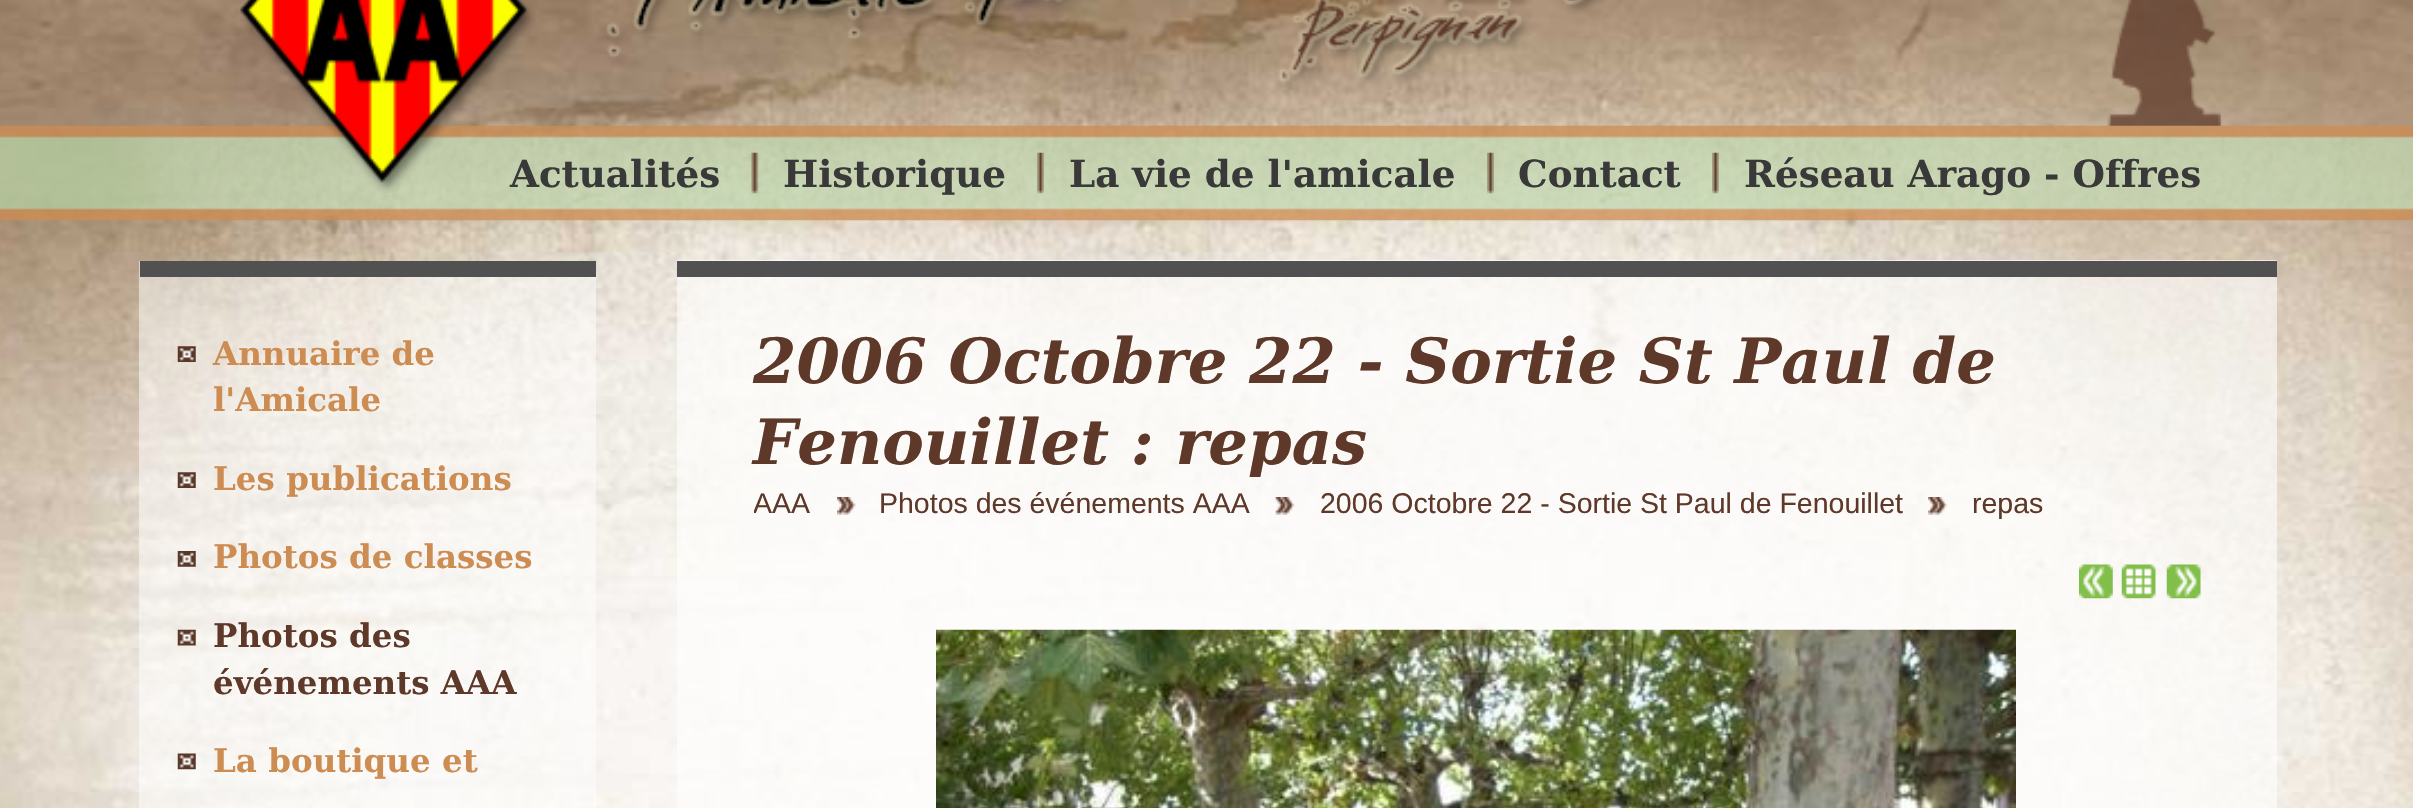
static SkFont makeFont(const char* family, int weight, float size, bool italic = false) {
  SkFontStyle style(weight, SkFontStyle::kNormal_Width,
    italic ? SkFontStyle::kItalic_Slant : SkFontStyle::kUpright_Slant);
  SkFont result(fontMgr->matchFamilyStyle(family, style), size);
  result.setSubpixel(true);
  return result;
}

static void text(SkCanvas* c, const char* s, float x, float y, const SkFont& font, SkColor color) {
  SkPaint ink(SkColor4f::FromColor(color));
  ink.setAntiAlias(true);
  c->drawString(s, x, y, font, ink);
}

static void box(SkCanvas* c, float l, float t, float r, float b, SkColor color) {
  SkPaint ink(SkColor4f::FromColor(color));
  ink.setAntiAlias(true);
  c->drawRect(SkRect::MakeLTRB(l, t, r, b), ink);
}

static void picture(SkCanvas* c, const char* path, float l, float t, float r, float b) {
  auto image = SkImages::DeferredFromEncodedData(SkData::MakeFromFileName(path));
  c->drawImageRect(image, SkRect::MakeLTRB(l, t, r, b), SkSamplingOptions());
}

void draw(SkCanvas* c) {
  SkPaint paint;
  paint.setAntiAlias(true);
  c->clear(0xffffffff);
  picture(c, "img_01.png", 0, 0, 2413, 808);
  picture(c, "img_02.png", 0, 125, 2413, 221);
  picture(c, "img_03.png", 240, 0, 536, 193);
  picture(c, "img_04.png", 606, 0, 2221, 126);
  SkFont face1 = makeFont("DejaVu Serif", 700, 37.25f);
  text(c, "Actualités", 510, 187, face1, 0xff393939);
  picture(c, "img_05.png", 751, 152, 759, 194);
  text(c, "Historique", 783, 187, face1, 0xff393939);
  picture(c, "img_06.png", 1037, 152, 1044, 194);
  text(c, "La vie de l'amicale", 1069, 187, face1, 0xff393939);
  picture(c, "img_07.png", 1487, 152, 1494, 194);
  text(c, "Contact", 1518, 187, face1, 0xff393939);
  picture(c, "img_08.png", 1712, 152, 1719, 194);
  text(c, "Réseau Arago - Offres", 1744, 187, face1, 0xff393939);
  box(c, 139, 261, 596, 808, 0x80ffffff);
  box(c, 140, 261, 596, 277, 0xff515151);
  picture(c, "img_09.png", 177, 346, 196, 362);
  SkFont face2 = makeFont("DejaVu Serif", 700, 32.5f);
  text(c, "Annuaire de", 213, 365, face2, 0xffcd8c52);
  text(c, "l'Amicale", 213, 411, face2, 0xffcd8c52);
  picture(c, "img_10.png", 177, 472, 196, 488);
  text(c, "Les publications", 213, 490, face2, 0xffcd8c52);
  picture(c, "img_11.png", 177, 551, 196, 567);
  text(c, "Photos de classes", 213, 568, face2, 0xffcd8c52);
  picture(c, "img_12.png", 177, 629, 196, 646);
  text(c, "Photos des", 213, 647, face2, 0xff5e3929);
  text(c, "événements AAA", 213, 694, face2, 0xff5e3929);
  picture(c, "img_13.png", 177, 753, 196, 770);
  text(c, "La boutique et", 213, 772, face2, 0xffcd8c52);
  box(c, 677, 260, 2277, 808, 0x99ffffff);
  box(c, 677, 261, 2277, 277, 0xff515151);
  SkFont face3 = makeFont("DejaVu Serif", 700, 62.4f, true);
  text(c, "2006 Octobre 22 - Sortie St Paul de", 753, 383, face3, 0xff5e3929);
  text(c, "Fenouillet : repas", 753, 464, face3, 0xff5e3929);
  c->save();
  c->clipRect(SkRect::MakeLTRB(754, 484, 2201, 524));
  SkFont face4 = makeFont("Liberation Sans", 400, 28.5f);
  text(c, "AAA", 753, 513, face4, 0xff5e3929);
  c->restore();
  picture(c, "img_14.png", 837, 497, 856, 515);
  text(c, "Photos des événements AAA", 879, 513, face4, 0xff5e3929);
  picture(c, "img_15.png", 1275, 497, 1295, 515);
  text(c, "2006 Octobre 22 - Sortie St Paul de Fenouillet", 1320, 513, face4, 0xff5e3929);
  picture(c, "img_16.png", 1928, 497, 1947, 515);
  text(c, "repas", 1972, 513, face4, 0xff5e3929);
  picture(c, "img_17.png", 2079, 564, 2113, 599);
  picture(c, "img_18.png", 2121, 564, 2156, 599);
  picture(c, "img_19.png", 2166, 564, 2201, 599);
  picture(c, "img_20.png", 936, 629, 2016, 808);
}
